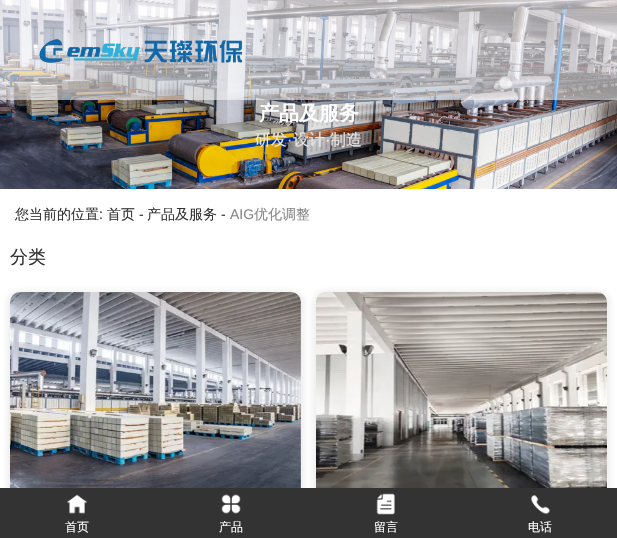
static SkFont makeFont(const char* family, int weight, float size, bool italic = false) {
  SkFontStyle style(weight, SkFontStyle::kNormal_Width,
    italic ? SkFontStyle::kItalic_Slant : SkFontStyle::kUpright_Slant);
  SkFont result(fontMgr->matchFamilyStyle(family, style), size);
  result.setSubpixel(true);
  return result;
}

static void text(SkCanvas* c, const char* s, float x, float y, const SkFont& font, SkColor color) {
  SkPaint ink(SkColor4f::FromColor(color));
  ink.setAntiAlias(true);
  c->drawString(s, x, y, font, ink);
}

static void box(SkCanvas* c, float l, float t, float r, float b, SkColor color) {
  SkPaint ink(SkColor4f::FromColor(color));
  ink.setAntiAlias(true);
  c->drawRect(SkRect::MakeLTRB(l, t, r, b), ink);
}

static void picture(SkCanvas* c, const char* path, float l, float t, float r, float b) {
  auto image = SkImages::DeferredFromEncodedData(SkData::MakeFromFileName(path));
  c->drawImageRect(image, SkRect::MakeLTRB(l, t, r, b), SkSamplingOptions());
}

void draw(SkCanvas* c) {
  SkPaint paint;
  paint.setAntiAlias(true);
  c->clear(0xffffffff);
  picture(c, "img_02.png", 0, 0, 617, 189);
  box(c, 0, 0, 617, 100, 0x8ffffefe);
  picture(c, "img_01.png", 39, 39, 243, 63);
  SkFont face1 = makeFont("WenQuanYi Zen Hei", 700, 20);
  text(c, "产品及服务", 259, 120, face1, 0xffffffff);
  SkFont face2 = makeFont("WenQuanYi Zen Hei", 500, 16);
  text(c, "研发", 255, 145, face2, 0xffe9e6db);
  SkFont face3 = makeFont("Liberation Sans", 400, 16);
  text(c, "·", 287, 145, face3, 0xffd1d5e2);
  text(c, "设计", 293, 145, face2, 0xffe7e5e5);
  text(c, "·", 325, 145, face3, 0xffeeedee);
  text(c, "制造", 330, 145, face2, 0xffe7e5e5);
  SkFont face4 = makeFont("WenQuanYi Zen Hei", 500, 14);
  text(c, "您当前的位置", 15, 219, face4, 0xff333333);
  SkFont face5 = makeFont("Liberation Sans", 400, 14);
  text(c, ":", 99, 219, face5, 0xff333333);
  text(c, "首页", 107, 219, face4, 0xff333333);
  text(c, "-", 139, 219, face5, 0xff333333);
  text(c, "产品及服务", 147, 219, face4, 0xff333333);
  text(c, "-", 221, 219, face5, 0xff333333);
  text(c, "AIG", 230, 219, face5, 0xff888888);
  text(c, "优化调整", 254, 219, face4, 0xff888888);
  SkFont face6 = makeFont("WenQuanYi Zen Hei", 500, 18);
  text(c, "分类", 10, 263, face6, 0xff333333);
  paint.setColor(0x40c5c5c5);
  paint.setMaskFilter(SkMaskFilter::MakeBlur(kNormal_SkBlurStyle, 2.5f));
  c->drawRoundRect(SkRect::MakeLTRB(6, 290, 305, 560), 14, 14, paint);
  paint.setMaskFilter(nullptr);
  picture(c, "img_03.png", 10, 292, 301, 488);
  paint.setMaskFilter(SkMaskFilter::MakeBlur(kNormal_SkBlurStyle, 2.5f));
  c->drawRoundRect(SkRect::MakeLTRB(312, 290, 611, 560), 14, 14, paint);
  paint.setMaskFilter(nullptr);
  picture(c, "img_04.png", 316, 292, 607, 488);
  box(c, 0, 488, 617, 538, 0xff333333);
  picture(c, "img_05.png", 67, 494, 88, 514);
  SkFont face7 = makeFont("WenQuanYi Zen Hei", 500, 12);
  text(c, "首页", 65, 531, face7, 0xffffffff);
  picture(c, "img_06.png", 221, 494, 241, 514);
  text(c, "产品", 219, 531, face7, 0xffffffff);
  picture(c, "img_07.png", 376, 493, 395, 515);
  text(c, "留言", 374, 531, face7, 0xffffffff);
  picture(c, "img_08.png", 531, 495, 550, 514);
  text(c, "电话", 528, 531, face7, 0xffffffff);
}
